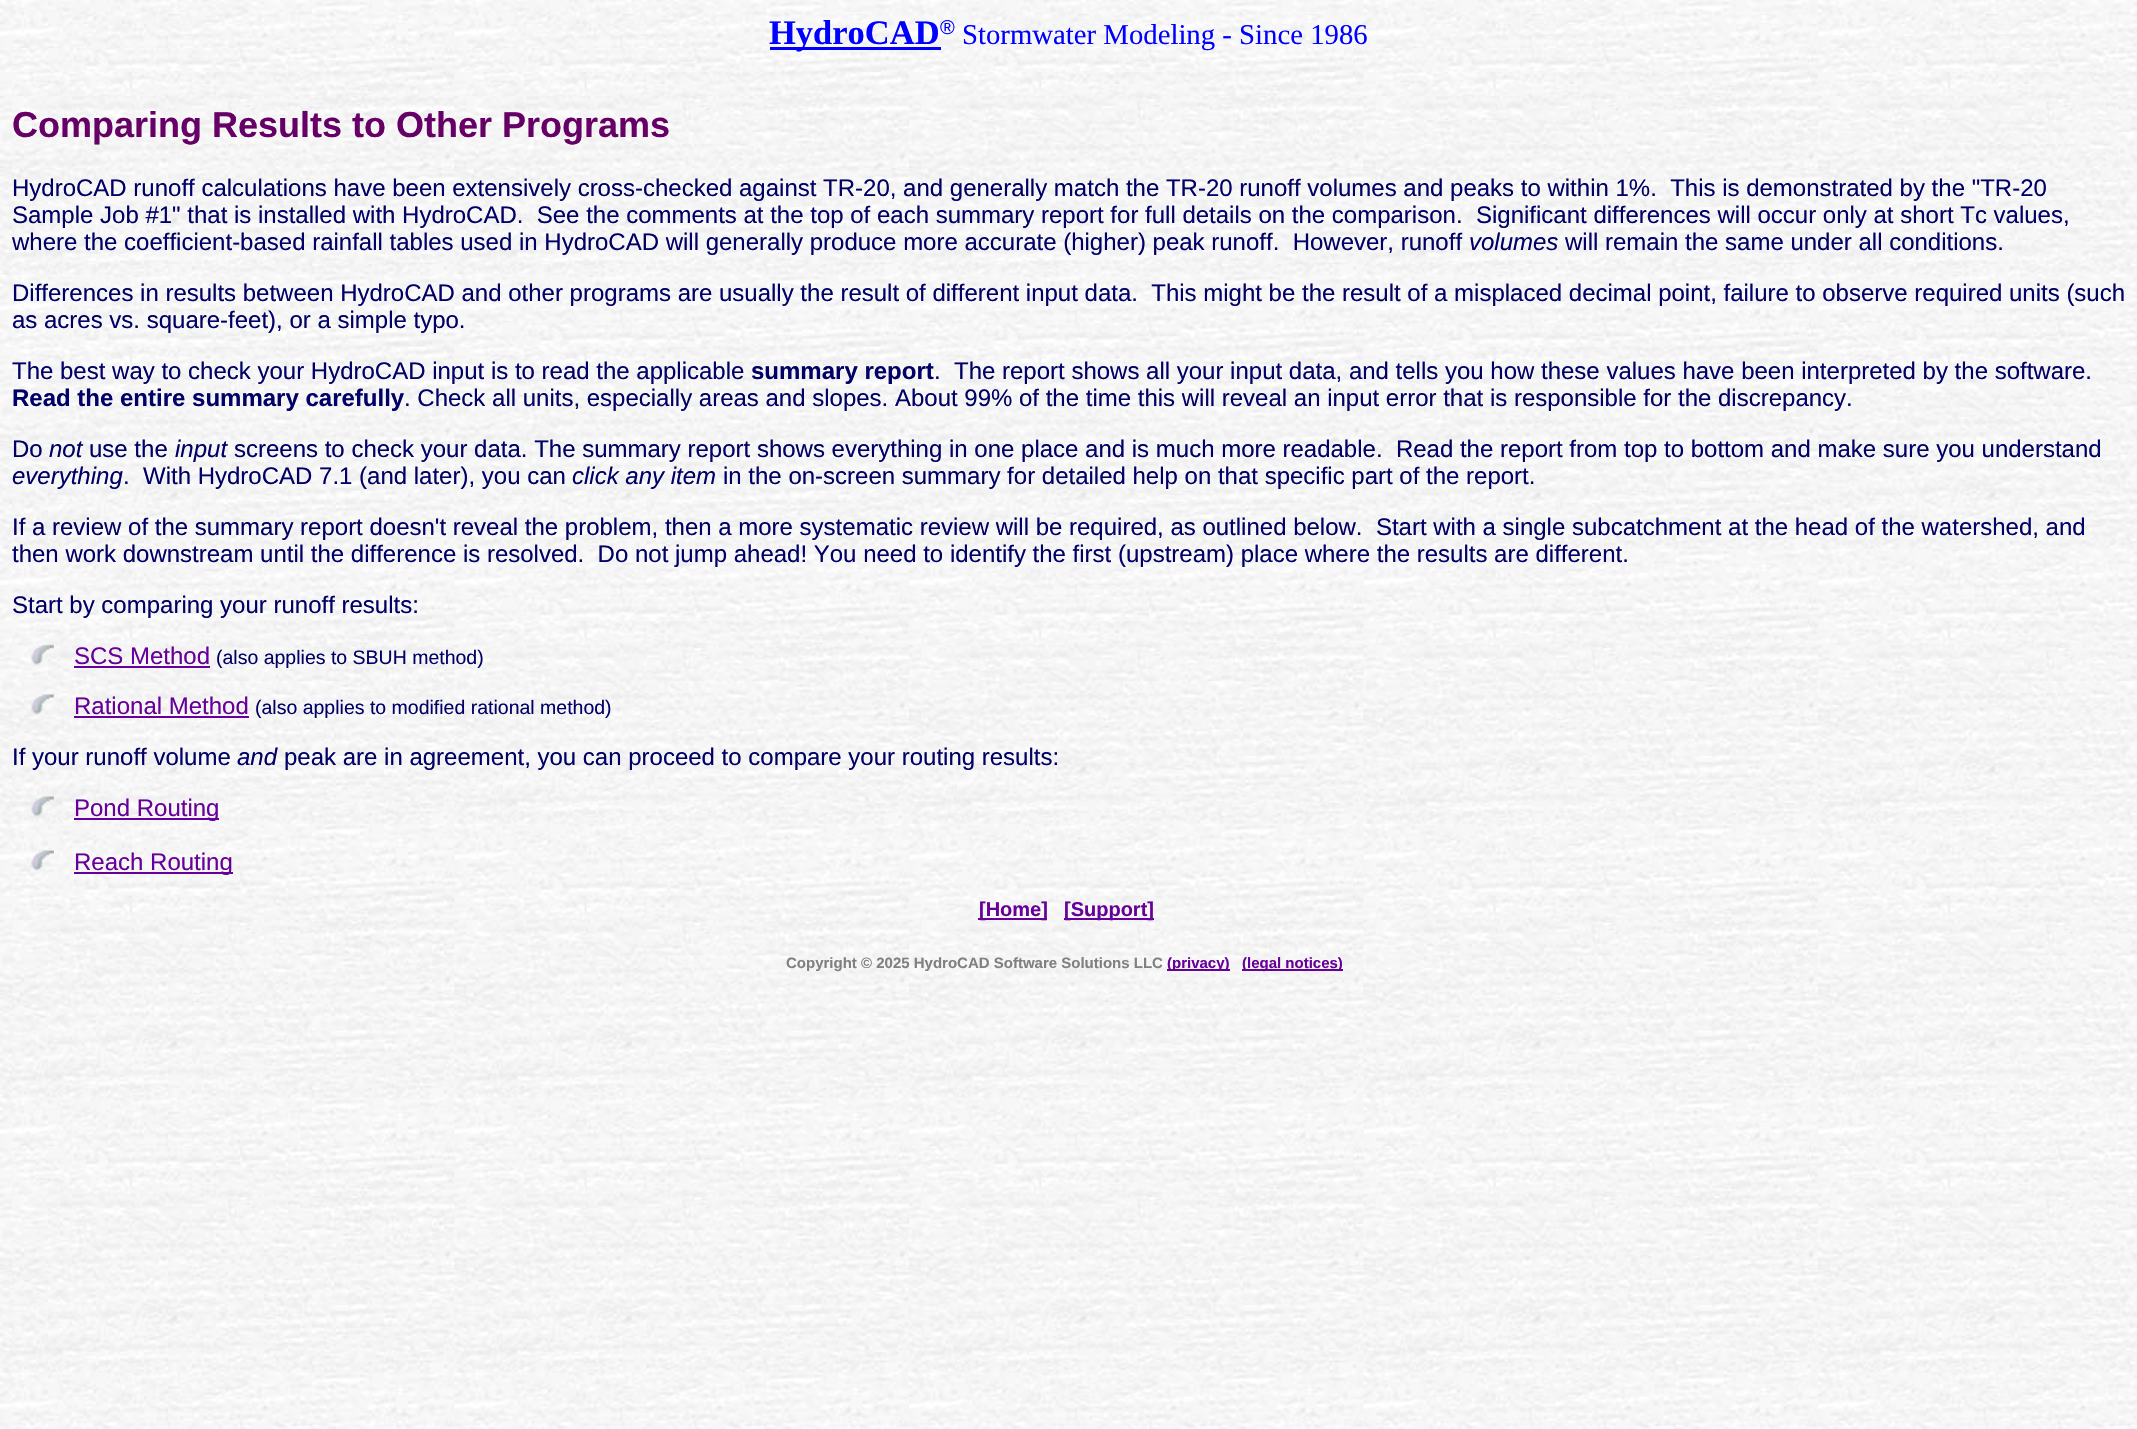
static SkFont makeFont(const char* family, int weight, float size, bool italic = false) {
  SkFontStyle style(weight, SkFontStyle::kNormal_Width,
    italic ? SkFontStyle::kItalic_Slant : SkFontStyle::kUpright_Slant);
  SkFont result(fontMgr->matchFamilyStyle(family, style), size);
  result.setSubpixel(true);
  return result;
}

static void text(SkCanvas* c, const char* s, float x, float y, const SkFont& font, SkColor color) {
  SkPaint ink(SkColor4f::FromColor(color));
  ink.setAntiAlias(true);
  c->drawString(s, x, y, font, ink);
}

static void box(SkCanvas* c, float l, float t, float r, float b, SkColor color) {
  SkPaint ink(SkColor4f::FromColor(color));
  ink.setAntiAlias(true);
  c->drawRect(SkRect::MakeLTRB(l, t, r, b), ink);
}

static void picture(SkCanvas* c, const char* path, float l, float t, float r, float b) {
  auto image = SkImages::DeferredFromEncodedData(SkData::MakeFromFileName(path));
  c->drawImageRect(image, SkRect::MakeLTRB(l, t, r, b), SkSamplingOptions());
}

void draw(SkCanvas* c) {
  SkPaint paint;
  paint.setAntiAlias(true);
  c->clear(0xffffffff);
  picture(c, "img_01.png", 0, 0, 2137, 1429);
  box(c, 770, 47, 941, 50, 0xff0000ff);
  SkFont face1 = makeFont("Liberation Serif", 700, 34.5f);
  text(c, "HydroCAD", 769, 44, face1, 0xff0000ff);
  SkFont face2 = makeFont("Liberation Sans", 400, 20);
  text(c, "®", 940, 34, face2, 0xff0000ff);
  SkFont face3 = makeFont("Liberation Serif", 400, 28.75f);
  text(c, "Stormwater Modeling - Since 1986", 962, 44, face3, 0xff0000ff);
  SkFont face4 = makeFont("Liberation Sans", 700, 36);
  text(c, "Comparing Results to Other Programs", 12, 137, face4, 0xff660066);
  SkFont face5 = makeFont("Liberation Sans", 400, 24);
  text(c, "HydroCAD runoff calculations have been extensively cross-checked against TR-20, and generally match the TR-20 runoff volumes and peaks to within 1%.  This is demonstrated by the \"TR-20", 12, 196, face5, 0xff000066);
  text(c, "Sample Job #1\" that is installed with HydroCAD.  See the comments at the top of each summary report for full details on the comparison.", 12, 223, face5, 0xff000066);
  text(c, "Significant differences will occur only at short Tc values,", 1476, 223, face5, 0xff000066);
  text(c, "where the coefficient-based rainfall tables used in HydroCAD will generally produce more accurate (higher) peak runoff.  However, runoff", 12, 250, face5, 0xff000066);
  SkFont face6 = makeFont("Liberation Sans", 400, 24, true);
  text(c, "volumes", 1469, 250, face6, 0xff000066);
  text(c, "will remain the same under all conditions.", 1565, 250, face5, 0xff000066);
  text(c, "Differences in results between HydroCAD and other programs are usually the result of different input data.  This might be the result of a misplaced decimal point, failure to observe required units (such", 12, 301, face5, 0xff000066);
  text(c, "as acres vs. square-feet), or a simple typo.", 12, 328, face5, 0xff000066);
  text(c, "The best way to check your HydroCAD input is to read the applicable", 12, 379, face5, 0xff000066);
  SkFont face7 = makeFont("Liberation Sans", 700, 24);
  text(c, "summary report", 751, 379, face7, 0xff000066);
  text(c, ".  The report shows all your input data, and tells you how these values have been interpreted by the software.", 934, 379, face5, 0xff000066);
  text(c, "Read the entire summary carefully", 12, 406, face7, 0xff000066);
  text(c, ". Check all units, especially areas and slopes. About 99% of the time this will reveal an input error that is responsible for the discrepancy.", 404, 406, face5, 0xff000066);
  text(c, "Do", 12, 457, face5, 0xff000066);
  text(c, "not", 49, 457, face6, 0xff000066);
  text(c, "use the", 89, 457, face5, 0xff000066);
  text(c, "input", 175, 457, face6, 0xff000066);
  text(c, "screens to check your data. The summary report shows everything in one place and is much more readable.  Read the report from top to bottom and make sure you understand", 234, 457, face5, 0xff000066);
  text(c, "everything", 12, 484, face6, 0xff000066);
  text(c, ".  With HydroCAD 7.1 (and later), you can", 123, 484, face5, 0xff000066);
  text(c, "click any item", 572, 484, face6, 0xff000066);
  text(c, "in the on-screen summary for detailed help on that specific part of the report.", 723, 484, face5, 0xff000066);
  text(c, "If a review of the summary report doesn't reveal the problem, then a more systematic review will be required, as outlined below.  Start with a single subcatchment at the head of the watershed, and", 12, 535, face5, 0xff000066);
  text(c, "then work downstream until the difference is resolved.  Do not jump ahead! You need to identify the first (upstream) place where the results are different.", 12, 562, face5, 0xff000066);
  text(c, "Start by comparing your runoff results:", 12, 613, face5, 0xff000066);
  picture(c, "img_02.png", 31, 644, 54, 665);
  text(c, "SCS Method", 74, 664, face5, 0xff660099);
  box(c, 74, 666, 210, 668, 0xff660099);
  SkFont face8 = makeFont("Liberation Sans", 400, 19.5f);
  text(c, "(also applies to SBUH method)", 216, 664, face8, 0xff000066);
  picture(c, "img_03.png", 31, 694, 54, 715);
  text(c, "Rational Method", 74, 714, face5, 0xff660099);
  box(c, 74, 716, 249, 718, 0xff660099);
  text(c, "(also applies to modified rational method)", 255, 714, face8, 0xff000066);
  text(c, "If your runoff volume", 12, 765, face5, 0xff000066);
  text(c, "and", 237, 765, face6, 0xff000066);
  text(c, "peak are in agreement, you can proceed to compare your routing results:", 284, 765, face5, 0xff000066);
  picture(c, "img_04.png", 31, 796, 54, 817);
  box(c, 74, 818, 219, 820, 0xff660099);
  text(c, "Pond Routing", 74, 816, face5, 0xff660099);
  picture(c, "img_05.png", 31, 850, 54, 871);
  box(c, 74, 872, 233, 874, 0xff660099);
  text(c, "Reach Routing", 74, 870, face5, 0xff660099);
  box(c, 978, 918, 1047, 920, 0xff660099);
  SkFont face9 = makeFont("Liberation Sans", 700, 20);
  text(c, "[Home]", 979, 916, face9, 0xff660099);
  box(c, 1064, 918, 1154, 920, 0xff660099);
  text(c, "[Support]", 1064, 916, face9, 0xff660099);
  SkFont face10 = makeFont("Liberation Sans", 700, 15);
  text(c, "Copyright © 2025 HydroCAD Software Solutions LLC", 786, 968, face10, 0xff808080);
  box(c, 1167, 969, 1230, 971, 0xff660099);
  text(c, "(privacy)", 1167, 968, face10, 0xff660099);
  box(c, 1242, 969, 1343, 971, 0xff660099);
  text(c, "(legal notices)", 1242, 968, face10, 0xff660099);
}
